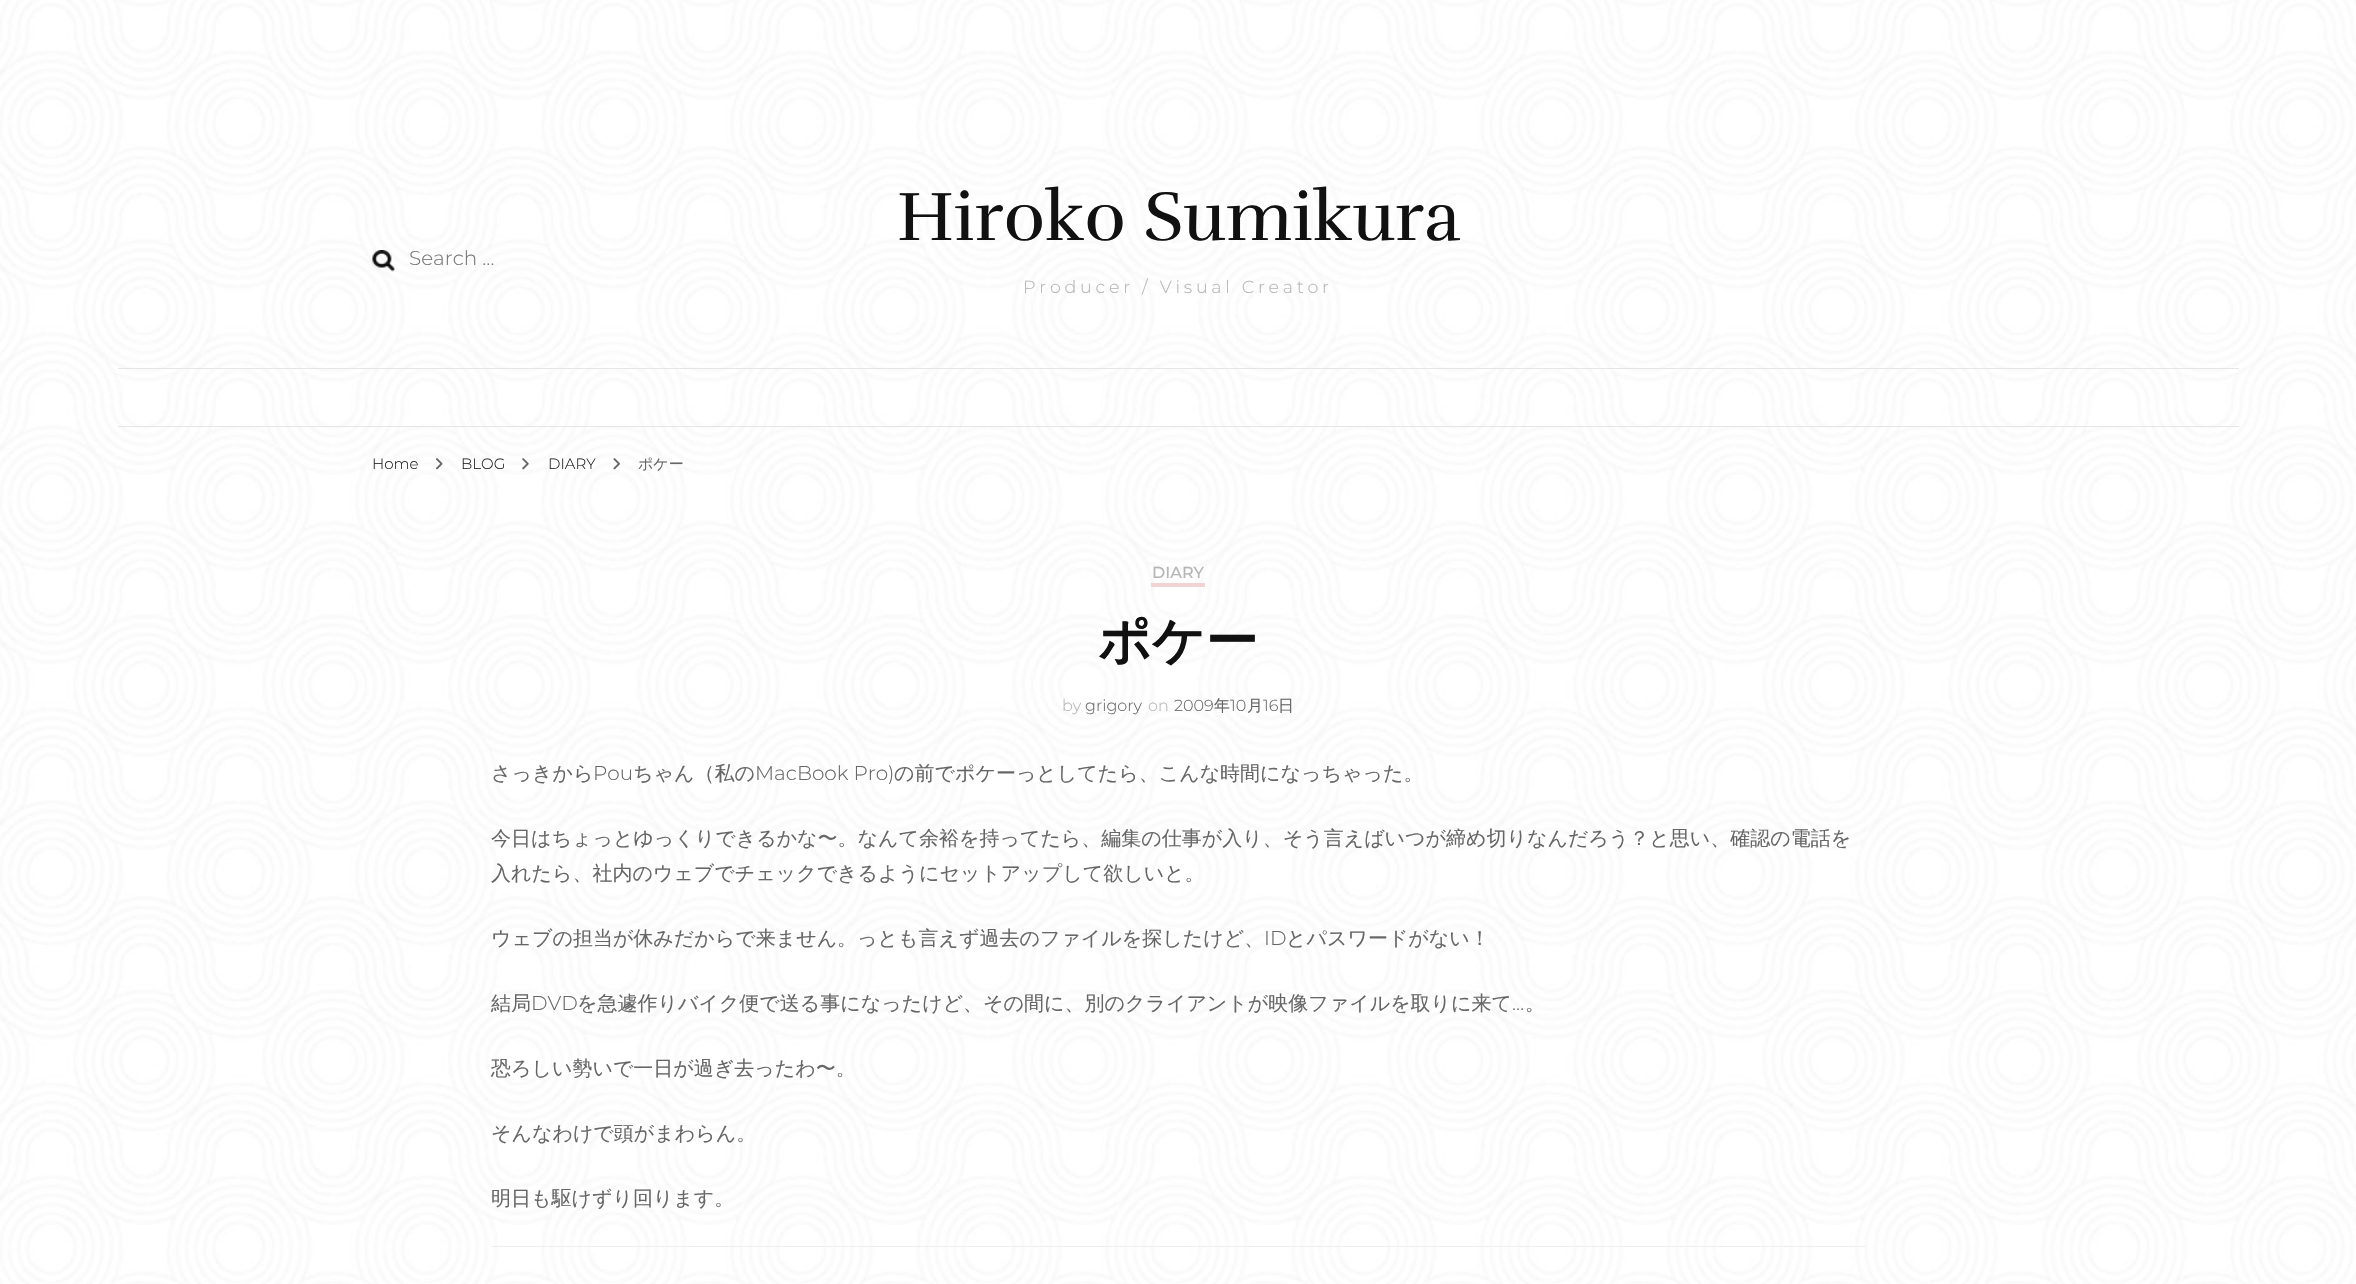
static SkFont makeFont(const char* family, int weight, float size, bool italic = false) {
  SkFontStyle style(weight, SkFontStyle::kNormal_Width,
    italic ? SkFontStyle::kItalic_Slant : SkFontStyle::kUpright_Slant);
  SkFont result(fontMgr->matchFamilyStyle(family, style), size);
  result.setSubpixel(true);
  return result;
}

static void text(SkCanvas* c, const char* s, float x, float y, const SkFont& font, SkColor color) {
  SkPaint ink(SkColor4f::FromColor(color));
  ink.setAntiAlias(true);
  c->drawString(s, x, y, font, ink);
}

static void spacedText(SkCanvas* c, const char* s, float x, float y, const SkFont& font, const SkPaint& ink, float letter, float word) {
  std::vector<SkGlyphID> glyphs(font.countText(s, strlen(s), SkTextEncoding::kUTF8));
  std::vector<float> xs(glyphs.size());
  font.textToGlyphs(s, strlen(s), SkTextEncoding::kUTF8, glyphs);
  font.getXPos(glyphs, xs, x);
  float extra = 0;
  for (size_t i = 0; i < glyphs.size(); i++) {
    xs[i] += extra;
    extra += letter + word * (glyphs[i] == font.unicharToGlyph(' '));
  }
  c->drawTextBlob(SkTextBlob::MakeFromPosHGlyphs(glyphs, xs, y, font), 0, 0, ink);
}

static void box(SkCanvas* c, float l, float t, float r, float b, SkColor color) {
  SkPaint ink(SkColor4f::FromColor(color));
  ink.setAntiAlias(true);
  c->drawRect(SkRect::MakeLTRB(l, t, r, b), ink);
}

static void picture(SkCanvas* c, const char* path, float l, float t, float r, float b) {
  auto image = SkImages::DeferredFromEncodedData(SkData::MakeFromFileName(path));
  c->drawImageRect(image, SkRect::MakeLTRB(l, t, r, b), SkSamplingOptions());
}

void draw(SkCanvas* c) {
  SkPaint paint;
  paint.setAntiAlias(true);
  c->clear(0xffffffff);
  picture(c, "img_01.png", 0, 0, 2356, 1284);
  picture(c, "img_02.png", 372, 250, 395, 272);
  SkFont face1 = makeFont("Montserrat", 300, 20);
  text(c, "Search …", 409, 265, face1, 0xff757575);
  SkFont face2 = makeFont("Rufina", 400, 70);
  text(c, "Hiroko Sumikura", 897, 240, face2, 0xff111111);
  SkFont face3 = makeFont("Montserrat", 300, 17.5f);
  paint.setColor(0xffb5b5b5);
  spacedText(c, "Producer / Visual Creator", 1023, 293, face3, paint, 3.75f, 0);
  box(c, 118, 368, 2239, 369, 0xffe5e5e5);
  box(c, 118, 426, 2239, 427, 0xffe5e5e5);
  SkFont face4 = makeFont("Montserrat", 300, 15);
  text(c, "Home", 372, 469, face4, 0xff222222);
  picture(c, "img_03.png", 436, 458, 443, 470);
  text(c, "BLOG", 461, 469, face4, 0xff222222);
  picture(c, "img_04.png", 522, 458, 529, 470);
  text(c, "DIARY", 548, 469, face4, 0xff222222);
  picture(c, "img_05.png", 613, 458, 620, 470);
  SkFont face5 = makeFont("WenQuanYi Zen Hei", 500, 15);
  text(c, "ポケー", 638, 469, face5, 0xff666666);
  box(c, 1151, 583, 1205, 587, 0xfff1d3d3);
  SkFont face6 = makeFont("Montserrat", 500, 16);
  text(c, "DIARY", 1152, 578, face6, 0xffb5b5b5);
  SkFont face7 = makeFont("WenQuanYi Zen Hei", 700, 52.5f);
  text(c, "ポケー", 1098, 659, face7, 0xff111111);
  SkFont face8 = makeFont("Montserrat", 300, 16);
  text(c, "by", 1062, 711, face8, 0xffb5b5b5);
  text(c, "grigory", 1085, 711, face8, 0xff666666);
  text(c, "on", 1148, 711, face8, 0xffb5b5b5);
  text(c, "2009", 1174, 711, face8, 0xff666666);
  SkFont face9 = makeFont("WenQuanYi Zen Hei", 500, 16);
  text(c, "年", 1214, 711, face9, 0xff666666);
  text(c, "10", 1230, 711, face8, 0xff666666);
  text(c, "月", 1247, 711, face9, 0xff666666);
  text(c, "16", 1263, 711, face8, 0xff666666);
  text(c, "日", 1278, 711, face9, 0xff666666);
  SkFont face10 = makeFont("WenQuanYi Zen Hei", 500, 20);
  text(c, "さっきから", 491, 780, face10, 0xff666666);
  text(c, "Pou", 593, 780, face1, 0xff666666);
  text(c, "ちゃん（私の", 633, 780, face10, 0xff666666);
  text(c, "MacBook Pro)", 755, 780, face1, 0xff666666);
  text(c, "の前でポケーっとしてたら、こんな時間になっちゃった。", 894, 780, face10, 0xff666666);
  text(c, "今日はちょっとゆっくりできるかな〜。なんて余裕を持ってたら、編集の仕事が入り、そう言えばいつが締め切りなんだろう？と思い、確認の電話を", 491, 845, face10, 0xff666666);
  text(c, "入れたら、社内のウェブでチェックできるようにセットアップして欲しいと。", 491, 880, face10, 0xff666666);
  text(c, "ウェブの担当が休みだからで来ません。っとも言えず過去のファイルを探したけど、", 491, 945, face10, 0xff666666);
  text(c, "ID", 1264, 945, face1, 0xff666666);
  text(c, "とパスワードがない！", 1286, 945, face10, 0xff666666);
  text(c, "結局", 491, 1010, face10, 0xff666666);
  text(c, "DVD", 531, 1010, face1, 0xff666666);
  text(c, "を急遽作りバイク便で送る事になったけど、その間に、別のクライアントが映像ファイルを取りに来て", 577, 1010, face10, 0xff666666);
  text(c, "…", 1512, 1010, face1, 0xff666666);
  text(c, "。", 1525, 1010, face10, 0xff666666);
  text(c, "恐ろしい勢いで一日が過ぎ去ったわ〜。", 491, 1075, face10, 0xff666666);
  text(c, "そんなわけで頭がまわらん。", 491, 1140, face10, 0xff666666);
  text(c, "明日も駆けずり回ります。", 491, 1205, face10, 0xff666666);
  box(c, 491, 1246, 1866, 1247, 0xffeeeeee);
}
